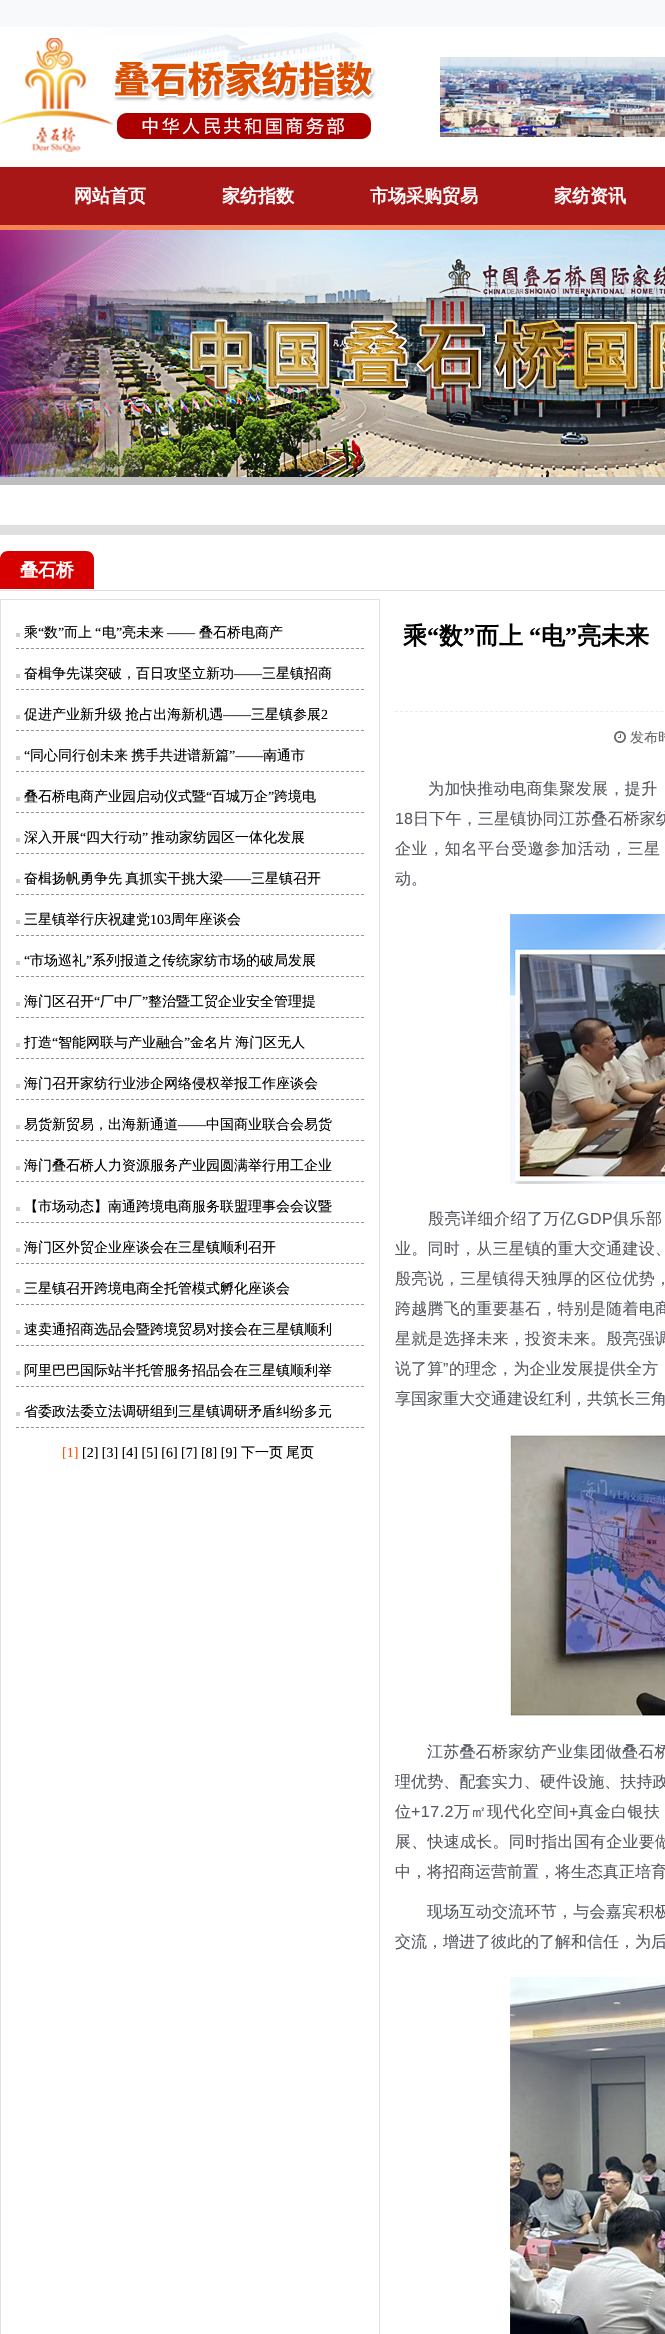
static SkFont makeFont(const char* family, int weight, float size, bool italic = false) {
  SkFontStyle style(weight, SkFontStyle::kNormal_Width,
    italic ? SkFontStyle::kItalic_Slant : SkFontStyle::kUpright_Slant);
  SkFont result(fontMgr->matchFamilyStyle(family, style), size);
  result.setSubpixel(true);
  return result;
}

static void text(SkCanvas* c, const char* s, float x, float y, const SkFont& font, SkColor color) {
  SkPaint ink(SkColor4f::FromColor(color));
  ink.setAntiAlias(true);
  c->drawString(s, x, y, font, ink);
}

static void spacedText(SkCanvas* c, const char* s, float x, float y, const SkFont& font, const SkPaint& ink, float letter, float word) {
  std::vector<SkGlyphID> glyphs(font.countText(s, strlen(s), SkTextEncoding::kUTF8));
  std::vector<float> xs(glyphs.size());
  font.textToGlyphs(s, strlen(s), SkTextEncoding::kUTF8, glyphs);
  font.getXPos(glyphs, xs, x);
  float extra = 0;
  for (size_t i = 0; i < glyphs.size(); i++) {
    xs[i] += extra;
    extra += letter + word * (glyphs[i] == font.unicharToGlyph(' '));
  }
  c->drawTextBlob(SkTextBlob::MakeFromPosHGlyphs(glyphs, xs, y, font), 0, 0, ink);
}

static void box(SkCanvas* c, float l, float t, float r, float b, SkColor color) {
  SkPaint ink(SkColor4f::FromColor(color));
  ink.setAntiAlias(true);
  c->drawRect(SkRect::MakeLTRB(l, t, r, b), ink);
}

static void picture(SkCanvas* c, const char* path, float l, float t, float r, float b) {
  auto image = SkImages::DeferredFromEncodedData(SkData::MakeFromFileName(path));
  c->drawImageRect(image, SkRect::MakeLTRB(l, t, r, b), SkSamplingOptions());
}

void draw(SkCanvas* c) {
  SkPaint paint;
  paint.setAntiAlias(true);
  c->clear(0xffbfbebe);
  box(c, 0, 0, 665, 27, 0xfff8f9fa);
  box(c, 0, 27, 665, 167, 0xffffffff);
  picture(c, "img_01.png", 0, 27, 376, 153);
  picture(c, "img_02.png", 440, 57, 665, 137);
  box(c, 0, 167, 665, 225, 0xffa71717);
  box(c, 0, 225, 665, 230, 0xfff58358);
  SkFont face1 = makeFont("WenQuanYi Zen Hei", 700, 18);
  text(c, "网站首页", 74, 202, face1, 0xffffffff);
  text(c, "家纺指数", 222, 202, face1, 0xffffffff);
  text(c, "市场采购贸易", 370, 202, face1, 0xffffffff);
  text(c, "家纺资讯", 554, 202, face1, 0xffffffff);
  picture(c, "img_03.png", 0, 230, 665, 477);
  box(c, 0, 485, 665, 525, 0xffffffff);
  box(c, 0, 525, 665, 535, 0xffe0e0e0);
  box(c, 0, 535, 665, 590, 0xffffffff);
  box(c, 0, 590, 665, 591, 0xffdee2e6);
  paint.setColor(0xffd60000);
  c->drawPath(SkPathBuilder().moveTo(8, 551).lineTo(86, 551).cubicTo(90.5f, 551, 94, 554.5f, 94, 559).lineTo(94, 589).lineTo(0, 589).lineTo(0, 559).cubicTo(0, 554.5f, 3.5f, 551, 8, 551).close().detach(), paint);
  text(c, "叠石桥", 20, 576, face1, 0xffffffff);
  box(c, 0, 591, 665, 2334, 0xffffffff);
  paint.setStyle(SkPaint::kStroke_Style);
  paint.setStrokeWidth(1);
  paint.setColor(0xffdee2e6);
  c->drawRect(SkRect::MakeLTRB(0.5f, 599.5f, 379.5f, 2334.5f), paint);
  paint.setColor(0xff949494);
  paint.setPathEffect(SkDashPathEffect::Make({{3, 2}}, 0));
  c->drawPath(SkPathBuilder().moveTo(16, 648.5f).lineTo(364, 648.5f).detach(), paint);
  paint.setPathEffect(nullptr);
  SkFont face2 = makeFont("WenQuanYi Zen Hei", 500, 14);
  text(c, "乘", 24, 637, face2, 0xff000000);
  SkFont face3 = makeFont("Liberation Serif", 400, 14);
  text(c, "“", 38, 637, face3, 0xff000000);
  text(c, "数", 44, 637, face2, 0xff000000);
  text(c, "”", 58, 637, face3, 0xff000000);
  text(c, "而上", 64, 637, face2, 0xff000000);
  text(c, "“", 95, 637, face3, 0xff000000);
  text(c, "电", 102, 637, face2, 0xff000000);
  text(c, "”", 116, 637, face3, 0xff000000);
  text(c, "亮未来", 122, 637, face2, 0xff000000);
  text(c, "叠石桥电商产", 199, 637, face2, 0xff000000);
  box(c, 16, 633, 20, 637, 0xffcccccc);
  text(c, "——", 167, 637, face3, 0xff000000);
  paint.setPathEffect(SkDashPathEffect::Make({{3, 2}}, 0));
  c->drawPath(SkPathBuilder().moveTo(16, 689.5f).lineTo(364, 689.5f).detach(), paint);
  paint.setPathEffect(nullptr);
  box(c, 16, 674, 20, 678, 0xffcccccc);
  text(c, "奋楫争先谋突破，百日攻坚立新功", 24, 678, face2, 0xff000000);
  text(c, "——", 234, 678, face3, 0xff000000);
  text(c, "三星镇招商", 262, 678, face2, 0xff000000);
  paint.setPathEffect(SkDashPathEffect::Make({{3, 2}}, 0));
  c->drawPath(SkPathBuilder().moveTo(16, 730.5f).lineTo(364, 730.5f).detach(), paint);
  paint.setPathEffect(nullptr);
  box(c, 16, 715, 20, 719, 0xffcccccc);
  paint.setStyle(SkPaint::kFill_Style);
  paint.setColor(0xff000000);
  spacedText(c, "促进产业新升级 抢占出海新机遇", 24, 719, face2, paint, 0, -1);
  text(c, "——", 223, 719, face3, 0xff000000);
  text(c, "三星镇参展", 251, 719, face2, 0xff000000);
  text(c, "2", 321, 719, face3, 0xff000000);
  paint.setStyle(SkPaint::kStroke_Style);
  paint.setColor(0xff949494);
  paint.setPathEffect(SkDashPathEffect::Make({{3, 2}}, 0));
  c->drawPath(SkPathBuilder().moveTo(16, 771.5f).lineTo(364, 771.5f).detach(), paint);
  paint.setPathEffect(nullptr);
  box(c, 16, 756, 20, 760, 0xffcccccc);
  text(c, "“", 24, 760, face3, 0xff000000);
  paint.setStyle(SkPaint::kFill_Style);
  paint.setColor(0xff000000);
  spacedText(c, "同心同行创未来 携手共进谱新篇", 30, 760, face2, paint, 0, -1);
  text(c, "”——", 229, 760, face3, 0xff000000);
  text(c, "南通市", 263, 760, face2, 0xff000000);
  paint.setStyle(SkPaint::kStroke_Style);
  paint.setColor(0xff949494);
  paint.setPathEffect(SkDashPathEffect::Make({{3, 2}}, 0));
  c->drawPath(SkPathBuilder().moveTo(16, 812.5f).lineTo(364, 812.5f).detach(), paint);
  paint.setPathEffect(nullptr);
  text(c, "叠石桥电商产业园启动仪式暨", 24, 801, face2, 0xff000000);
  text(c, "“", 206, 801, face3, 0xff000000);
  text(c, "百城万企", 212, 801, face2, 0xff000000);
  text(c, "”", 268, 801, face3, 0xff000000);
  text(c, "跨境电", 274, 801, face2, 0xff000000);
  box(c, 16, 797, 20, 801, 0xffcccccc);
  paint.setPathEffect(SkDashPathEffect::Make({{3, 2}}, 0));
  c->drawPath(SkPathBuilder().moveTo(16, 853.5f).lineTo(364, 853.5f).detach(), paint);
  paint.setPathEffect(nullptr);
  text(c, "深入开展", 24, 842, face2, 0xff000000);
  text(c, "“", 80, 842, face3, 0xff000000);
  text(c, "四大行动", 86, 842, face2, 0xff000000);
  text(c, "”", 142, 842, face3, 0xff000000);
  text(c, "推动家纺园区一体化发展", 151, 842, face2, 0xff000000);
  box(c, 16, 838, 20, 842, 0xffcccccc);
  paint.setPathEffect(SkDashPathEffect::Make({{3, 2}}, 0));
  c->drawPath(SkPathBuilder().moveTo(16, 894.5f).lineTo(364, 894.5f).detach(), paint);
  paint.setPathEffect(nullptr);
  box(c, 16, 879, 20, 883, 0xffcccccc);
  paint.setStyle(SkPaint::kFill_Style);
  paint.setColor(0xff000000);
  spacedText(c, "奋楫扬帆勇争先 真抓实干挑大梁", 24, 883, face2, paint, 0, -1);
  text(c, "——", 223, 883, face3, 0xff000000);
  text(c, "三星镇召开", 251, 883, face2, 0xff000000);
  paint.setStyle(SkPaint::kStroke_Style);
  paint.setColor(0xff949494);
  paint.setPathEffect(SkDashPathEffect::Make({{3, 2}}, 0));
  c->drawPath(SkPathBuilder().moveTo(16, 935.5f).lineTo(364, 935.5f).detach(), paint);
  paint.setPathEffect(nullptr);
  box(c, 16, 920, 20, 924, 0xffcccccc);
  text(c, "三星镇举行庆祝建党", 24, 924, face2, 0xff000000);
  text(c, "103", 150, 924, face3, 0xff000000);
  text(c, "周年座谈会", 171, 924, face2, 0xff000000);
  paint.setPathEffect(SkDashPathEffect::Make({{3, 2}}, 0));
  c->drawPath(SkPathBuilder().moveTo(16, 976.5f).lineTo(364, 976.5f).detach(), paint);
  paint.setPathEffect(nullptr);
  text(c, "“", 24, 965, face3, 0xff000000);
  text(c, "市场巡礼", 30, 965, face2, 0xff000000);
  text(c, "”", 86, 965, face3, 0xff000000);
  text(c, "系列报道之传统家纺市场的破局发展", 92, 965, face2, 0xff000000);
  box(c, 16, 961, 20, 965, 0xffcccccc);
  paint.setPathEffect(SkDashPathEffect::Make({{3, 2}}, 0));
  c->drawPath(SkPathBuilder().moveTo(16, 1017.5f).lineTo(364, 1017.5f).detach(), paint);
  paint.setPathEffect(nullptr);
  text(c, "海门区召开", 24, 1006, face2, 0xff000000);
  text(c, "“", 94, 1006, face3, 0xff000000);
  text(c, "厂中厂", 100, 1006, face2, 0xff000000);
  text(c, "”", 142, 1006, face3, 0xff000000);
  text(c, "整治暨工贸企业安全管理提", 148, 1006, face2, 0xff000000);
  box(c, 16, 1002, 20, 1006, 0xffcccccc);
  paint.setPathEffect(SkDashPathEffect::Make({{3, 2}}, 0));
  c->drawPath(SkPathBuilder().moveTo(16, 1058.5f).lineTo(364, 1058.5f).detach(), paint);
  paint.setPathEffect(nullptr);
  text(c, "打造", 24, 1047, face2, 0xff000000);
  text(c, "“", 52, 1047, face3, 0xff000000);
  text(c, "智能网联与产业融合", 58, 1047, face2, 0xff000000);
  text(c, "”", 184, 1047, face3, 0xff000000);
  paint.setStyle(SkPaint::kFill_Style);
  paint.setColor(0xff000000);
  spacedText(c, "金名片 海门区无人", 190, 1047, face2, paint, 0, -1);
  box(c, 16, 1043, 20, 1047, 0xffcccccc);
  paint.setStyle(SkPaint::kStroke_Style);
  paint.setColor(0xff949494);
  paint.setPathEffect(SkDashPathEffect::Make({{3, 2}}, 0));
  c->drawPath(SkPathBuilder().moveTo(16, 1099.5f).lineTo(364, 1099.5f).detach(), paint);
  paint.setPathEffect(nullptr);
  box(c, 16, 1084, 20, 1088, 0xffcccccc);
  text(c, "海门召开家纺行业涉企网络侵权举报工作座谈会", 24, 1088, face2, 0xff000000);
  paint.setPathEffect(SkDashPathEffect::Make({{3, 2}}, 0));
  c->drawPath(SkPathBuilder().moveTo(16, 1140.5f).lineTo(364, 1140.5f).detach(), paint);
  paint.setPathEffect(nullptr);
  box(c, 16, 1125, 20, 1129, 0xffcccccc);
  text(c, "易货新贸易，出海新通道", 24, 1129, face2, 0xff000000);
  text(c, "——", 178, 1129, face3, 0xff000000);
  text(c, "中国商业联合会易货", 206, 1129, face2, 0xff000000);
  paint.setPathEffect(SkDashPathEffect::Make({{3, 2}}, 0));
  c->drawPath(SkPathBuilder().moveTo(16, 1181.5f).lineTo(364, 1181.5f).detach(), paint);
  paint.setPathEffect(nullptr);
  box(c, 16, 1166, 20, 1170, 0xffcccccc);
  text(c, "海门叠石桥人力资源服务产业园圆满举行用工企业", 24, 1170, face2, 0xff000000);
  paint.setPathEffect(SkDashPathEffect::Make({{3, 2}}, 0));
  c->drawPath(SkPathBuilder().moveTo(16, 1222.5f).lineTo(364, 1222.5f).detach(), paint);
  paint.setPathEffect(nullptr);
  box(c, 16, 1207, 20, 1211, 0xffcccccc);
  text(c, "【市场动态】南通跨境电商服务联盟理事会会议暨", 24, 1211, face2, 0xff000000);
  paint.setPathEffect(SkDashPathEffect::Make({{3, 2}}, 0));
  c->drawPath(SkPathBuilder().moveTo(16, 1263.5f).lineTo(364, 1263.5f).detach(), paint);
  paint.setPathEffect(nullptr);
  box(c, 16, 1248, 20, 1252, 0xffcccccc);
  text(c, "海门区外贸企业座谈会在三星镇顺利召开", 24, 1252, face2, 0xff000000);
  paint.setPathEffect(SkDashPathEffect::Make({{3, 2}}, 0));
  c->drawPath(SkPathBuilder().moveTo(16, 1304.5f).lineTo(364, 1304.5f).detach(), paint);
  paint.setPathEffect(nullptr);
  box(c, 16, 1289, 20, 1293, 0xffcccccc);
  text(c, "三星镇召开跨境电商全托管模式孵化座谈会", 24, 1293, face2, 0xff000000);
  paint.setPathEffect(SkDashPathEffect::Make({{3, 2}}, 0));
  c->drawPath(SkPathBuilder().moveTo(16, 1345.5f).lineTo(364, 1345.5f).detach(), paint);
  paint.setPathEffect(nullptr);
  box(c, 16, 1330, 20, 1334, 0xffcccccc);
  text(c, "速卖通招商选品会暨跨境贸易对接会在三星镇顺利", 24, 1334, face2, 0xff000000);
  paint.setPathEffect(SkDashPathEffect::Make({{3, 2}}, 0));
  c->drawPath(SkPathBuilder().moveTo(16, 1386.5f).lineTo(364, 1386.5f).detach(), paint);
  paint.setPathEffect(nullptr);
  box(c, 16, 1371, 20, 1375, 0xffcccccc);
  text(c, "阿里巴巴国际站半托管服务招品会在三星镇顺利举", 24, 1375, face2, 0xff000000);
  paint.setPathEffect(SkDashPathEffect::Make({{3, 2}}, 0));
  c->drawPath(SkPathBuilder().moveTo(16, 1427.5f).lineTo(364, 1427.5f).detach(), paint);
  paint.setPathEffect(nullptr);
  box(c, 16, 1412, 20, 1416, 0xffcccccc);
  text(c, "省委政法委立法调研组到三星镇调研矛盾纠纷多元", 24, 1416, face2, 0xff000000);
  text(c, "[1]", 62, 1457, face3, 0xffff4e00);
  text(c, "[2] [3] [4] [5] [6] [7] [8] [9]", 82, 1457, face3, 0xff000000);
  text(c, "下一页", 241, 1457, face2, 0xff000000);
  text(c, "尾页", 286, 1457, face2, 0xff000000);
  SkFont face4 = makeFont("WenQuanYi Zen Hei", 700, 24);
  text(c, "乘", 403, 644, face4, 0xff000000);
  SkFont face5 = makeFont("Liberation Serif", 700, 24);
  text(c, "“", 427, 644, face5, 0xff000000);
  text(c, "数", 439, 644, face4, 0xff000000);
  text(c, "”", 463, 644, face5, 0xff000000);
  text(c, "而上", 475, 644, face4, 0xff000000);
  text(c, "“", 529, 644, face5, 0xff000000);
  text(c, "电", 541, 644, face4, 0xff000000);
  text(c, "”", 565, 644, face5, 0xff000000);
  text(c, "亮未来", 577, 644, face4, 0xff000000);
  paint.setColor(0xffe9ebee);
  paint.setPathEffect(SkDashPathEffect::Make({{3, 2.01f}}, 0));
  c->drawPath(SkPathBuilder().moveTo(395, 711.5f).lineTo(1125, 711.5f).detach(), paint);
  paint.setPathEffect(nullptr);
  picture(c, "img_04.png", 614, 731, 626, 743);
  text(c, "发布时", 630, 742, face2, 0xff666666);
  SkFont face6 = makeFont("WenQuanYi Zen Hei", 500, 16);
  paint.setStyle(SkPaint::kFill_Style);
  paint.setColor(0xff565862);
  spacedText(c, "为加快推动电商集聚发展，提升", 428, 794, face6, paint, 0.4f, 0);
  SkFont face7 = makeFont("Liberation Sans", 400, 16);
  spacedText(c, "18", 395, 824, face7, paint, 0.2f, 0);
  spacedText(c, "日下午，三星镇协同江苏叠石桥家纺", 413, 824, face6, paint, 0.2f, 0);
  spacedText(c, "企业，知名平台受邀参加活动，三星", 395, 854, face6, paint, 0.6f, 0);
  text(c, "动。", 395, 884, face6, 0xff565862);
  picture(c, "img_05.png", 510, 914, 665, 1184);
  spacedText(c, "殷亮详细介绍了万亿", 428, 1224, face6, paint, 0.5f, 0);
  spacedText(c, "GDP", 577, 1224, face7, paint, 0.5f, 0);
  spacedText(c, "俱乐部", 613, 1224, face6, paint, 0.5f, 0);
  spacedText(c, "业。同时，从三星镇的重大交通建设、", 395, 1254, face6, paint, 0.25f, 0);
  spacedText(c, "殷亮说，三星镇得天独厚的区位优势，", 395, 1284, face6, paint, 0.25f, 0);
  spacedText(c, "跨越腾飞的重要基石，特别是随着电商", 395, 1314, face6, paint, 0.25f, 0);
  spacedText(c, "星就是选择未来，投资未来。殷亮强调", 395, 1344, face6, paint, 0.25f, 0);
  spacedText(c, "说了算", 395, 1374, face6, paint, 0.1f, 0);
  spacedText(c, "”", 443, 1374, face7, paint, 0.1f, 0);
  spacedText(c, "的理念，为企业发展提供全方", 449, 1374, face6, paint, 0.1f, 0);
  text(c, "享国家重大交通建设红利，共筑长三角", 395, 1404, face6, 0xff565862);
  picture(c, "img_06.png", 510, 1435, 665, 1716);
  spacedText(c, "江苏叠石桥家纺产业集团做叠石桥", 427, 1757, face6, paint, 0.25f, 0);
  spacedText(c, "理优势、配套实力、硬件设施、扶持政", 395, 1787, face6, paint, 0.1f, 0);
  spacedText(c, "位", 395, 1817, face6, paint, 0.5f, 0);
  spacedText(c, "+17.2", 411, 1817, face7, paint, 0.5f, 0);
  spacedText(c, "万㎡现代化空间", 454, 1817, face6, paint, 0.5f, 0);
  spacedText(c, "+", 569, 1817, face7, paint, 0.5f, 0);
  spacedText(c, "真金白银扶", 578, 1817, face6, paint, 0.5f, 0);
  spacedText(c, "展、快速成长。同时指出国有企业要做", 395, 1847, face6, paint, 0.25f, 0);
  text(c, "中，将招商运营前置，将生态真正培育", 395, 1877, face6, 0xff565862);
  spacedText(c, "现场互动交流环节，与会嘉宾积极", 427, 1917, face6, paint, 0.25f, 0);
  text(c, "交流，增进了彼此的了解和信任，为后", 395, 1947, face6, 0xff565862);
  picture(c, "img_07.png", 510, 1977, 665, 2334);
}
